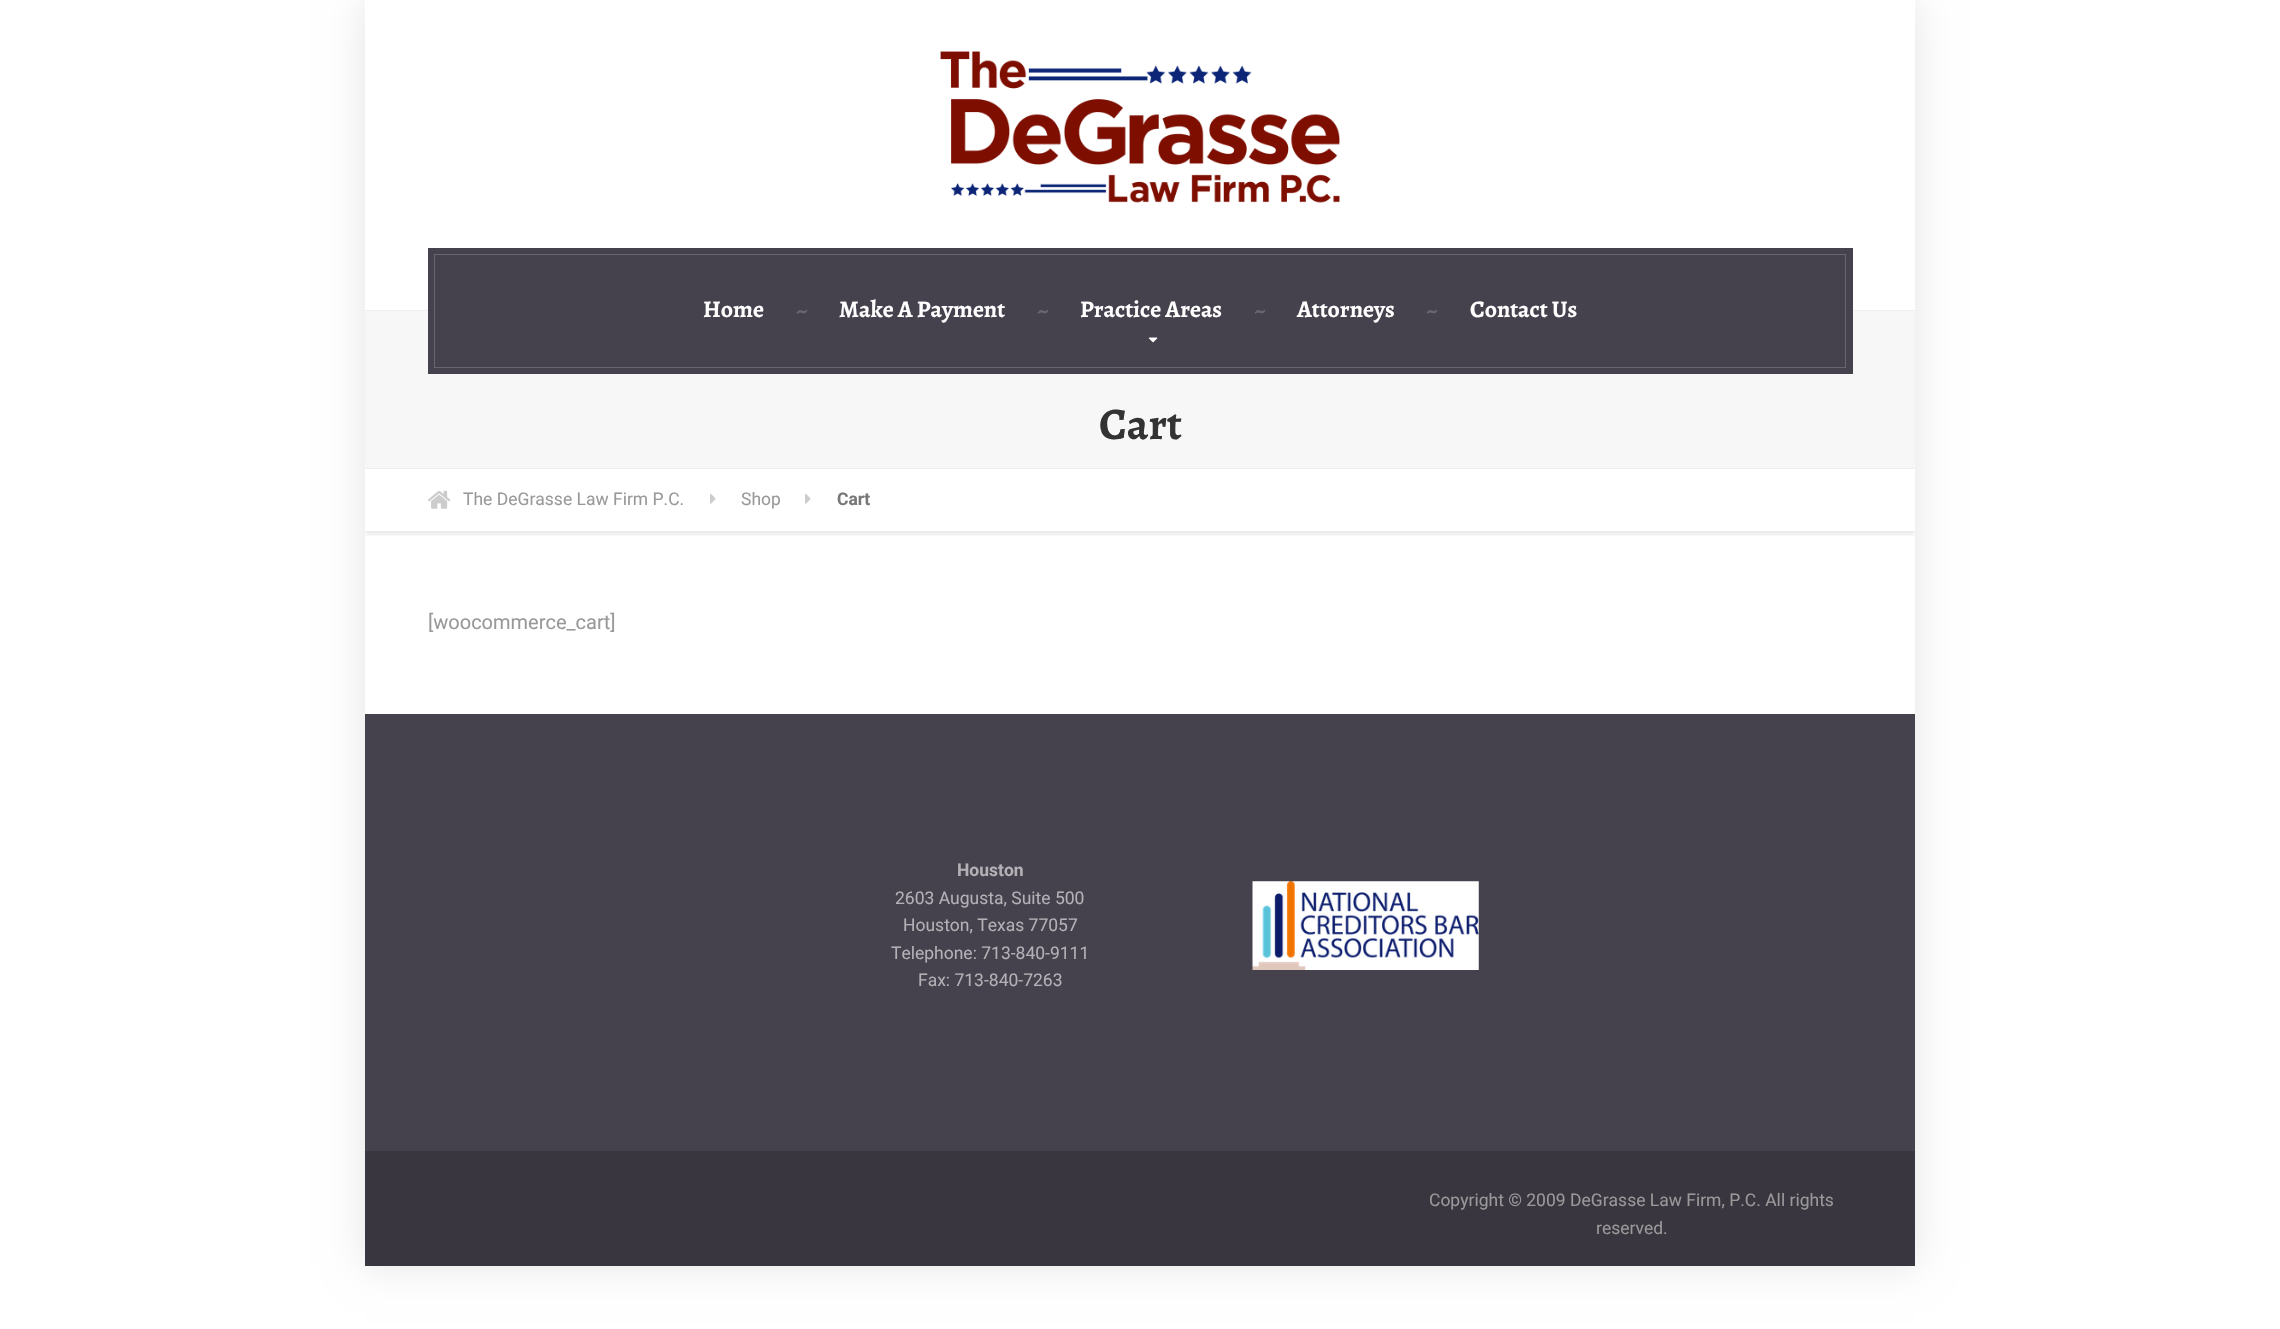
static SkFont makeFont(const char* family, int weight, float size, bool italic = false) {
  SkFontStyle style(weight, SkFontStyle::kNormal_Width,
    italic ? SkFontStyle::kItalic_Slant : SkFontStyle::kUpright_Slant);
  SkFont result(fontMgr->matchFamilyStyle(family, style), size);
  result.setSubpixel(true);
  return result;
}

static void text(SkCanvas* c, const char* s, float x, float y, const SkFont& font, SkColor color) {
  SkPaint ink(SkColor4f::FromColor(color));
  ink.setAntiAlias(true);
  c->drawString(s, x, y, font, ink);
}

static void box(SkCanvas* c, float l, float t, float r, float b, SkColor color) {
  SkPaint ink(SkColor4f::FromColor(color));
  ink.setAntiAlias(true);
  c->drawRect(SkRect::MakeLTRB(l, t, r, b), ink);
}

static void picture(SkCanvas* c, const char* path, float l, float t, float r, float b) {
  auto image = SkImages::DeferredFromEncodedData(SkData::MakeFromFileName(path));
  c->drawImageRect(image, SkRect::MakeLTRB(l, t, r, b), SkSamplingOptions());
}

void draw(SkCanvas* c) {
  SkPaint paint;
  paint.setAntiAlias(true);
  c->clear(0xffffffff);
  c->save();
  c->clipPath(SkPathBuilder(SkPathFillType::kEvenOdd).moveTo(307, 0).lineTo(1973, 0).lineTo(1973, 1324).lineTo(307, 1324).close().moveTo(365, 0).lineTo(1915, 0).lineTo(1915, 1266).lineTo(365, 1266).close().detach(), true);
  paint.setColor(0x1a000000);
  paint.setMaskFilter(SkMaskFilter::MakeBlur(kNormal_SkBlurStyle, 19));
  c->drawRect(SkRect::MakeLTRB(365, 0, 1915, 1266), paint);
  paint.setMaskFilter(nullptr);
  c->restore();
  picture(c, "img_01.png", 940, 51, 1340, 203);
  box(c, 365, 311, 1915, 468, 0xfff7f7f7);
  box(c, 365, 310, 1915, 311, 0xffeeeeee);
  box(c, 428, 248, 1853, 374, 0xff45414d);
  paint.setStyle(SkPaint::kStroke_Style);
  paint.setStrokeWidth(1);
  paint.setColor(0xff696670);
  c->drawRect(SkRect::MakeLTRB(434.5f, 254.5f, 1845.5f, 367.5f), paint);
  SkFont face1 = makeFont("Alegreya", 700, 23.75f);
  text(c, "Home", 703, 317, face1, 0xffffffff);
  text(c, "~", 796, 318, face1, 0xff696670);
  text(c, "Make A Payment", 839, 317, face1, 0xffffffff);
  text(c, "~", 1037, 318, face1, 0xff696670);
  text(c, "Practice Areas", 1080, 317, face1, 0xffffffff);
  text(c, "~", 1254, 318, face1, 0xff696670);
  picture(c, "img_02.png", 1148, 337, 1158, 343);
  text(c, "Attorneys", 1297, 317, face1, 0xffffffff);
  text(c, "~", 1426, 318, face1, 0xff696670);
  text(c, "Contact Us", 1470, 317, face1, 0xffffffff);
  box(c, 365, 468, 1915, 469, 0xffeeeeee);
  SkFont face2 = makeFont("Alegreya", 700, 45);
  text(c, "Cart", 1099, 439, face2, 0xff333333);
  c->save();
  c->clipRect(SkRect::MakeLTRB(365, 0, 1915, 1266));
  c->clipRect(SkRect::MakeLTRB(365, 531, 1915, 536));
  paint.setStyle(SkPaint::kFill_Style);
  paint.setColor(0x1a000000);
  paint.setMaskFilter(SkMaskFilter::MakeBlur(kNormal_SkBlurStyle, 2.5f));
  c->drawRect(SkRect::MakeLTRB(365, 471, 1915, 534), paint);
  paint.setMaskFilter(nullptr);
  c->restore();
  picture(c, "img_03.png", 428, 490, 451, 509);
  SkFont face3 = makeFont("Roboto", 400, 17.5f);
  text(c, "The DeGrasse Law Firm P.C.", 463, 505, face3, 0xff999999);
  picture(c, "img_04.png", 710, 493, 716, 504);
  text(c, "Shop", 741, 505, face3, 0xff999999);
  picture(c, "img_04.png", 805, 493, 811, 504);
  SkFont face4 = makeFont("Roboto", 700, 17.5f);
  text(c, "Cart", 837, 505, face4, 0xff777777);
  SkFont face5 = makeFont("Roboto", 400, 20);
  text(c, "[woocommerce_cart]", 428, 629, face5, 0xff999999);
  box(c, 365, 714, 1915, 1151, 0xff45414d);
  text(c, "Houston", 957, 876, face4, 0xffb2b1b5);
  text(c, "2603 Augusta, Suite 500", 895, 904, face3, 0xffb2b1b5);
  text(c, "Houston, Texas 77057", 903, 931, face3, 0xffb2b1b5);
  text(c, "Telephone: 713-840-9111", 891, 959, face3, 0xffb2b1b5);
  text(c, "Fax: 713-840-7263", 918, 986, face3, 0xffb2b1b5);
  picture(c, "img_05.png", 1252, 881, 1479, 970);
  box(c, 365, 1151, 1915, 1266, 0xff393640);
  text(c, "Copyright © 2009 DeGrasse Law Firm, P.C. All rights", 1429, 1206, face3, 0xff999999);
  text(c, "reserved.", 1596, 1234, face3, 0xff999999);
}
